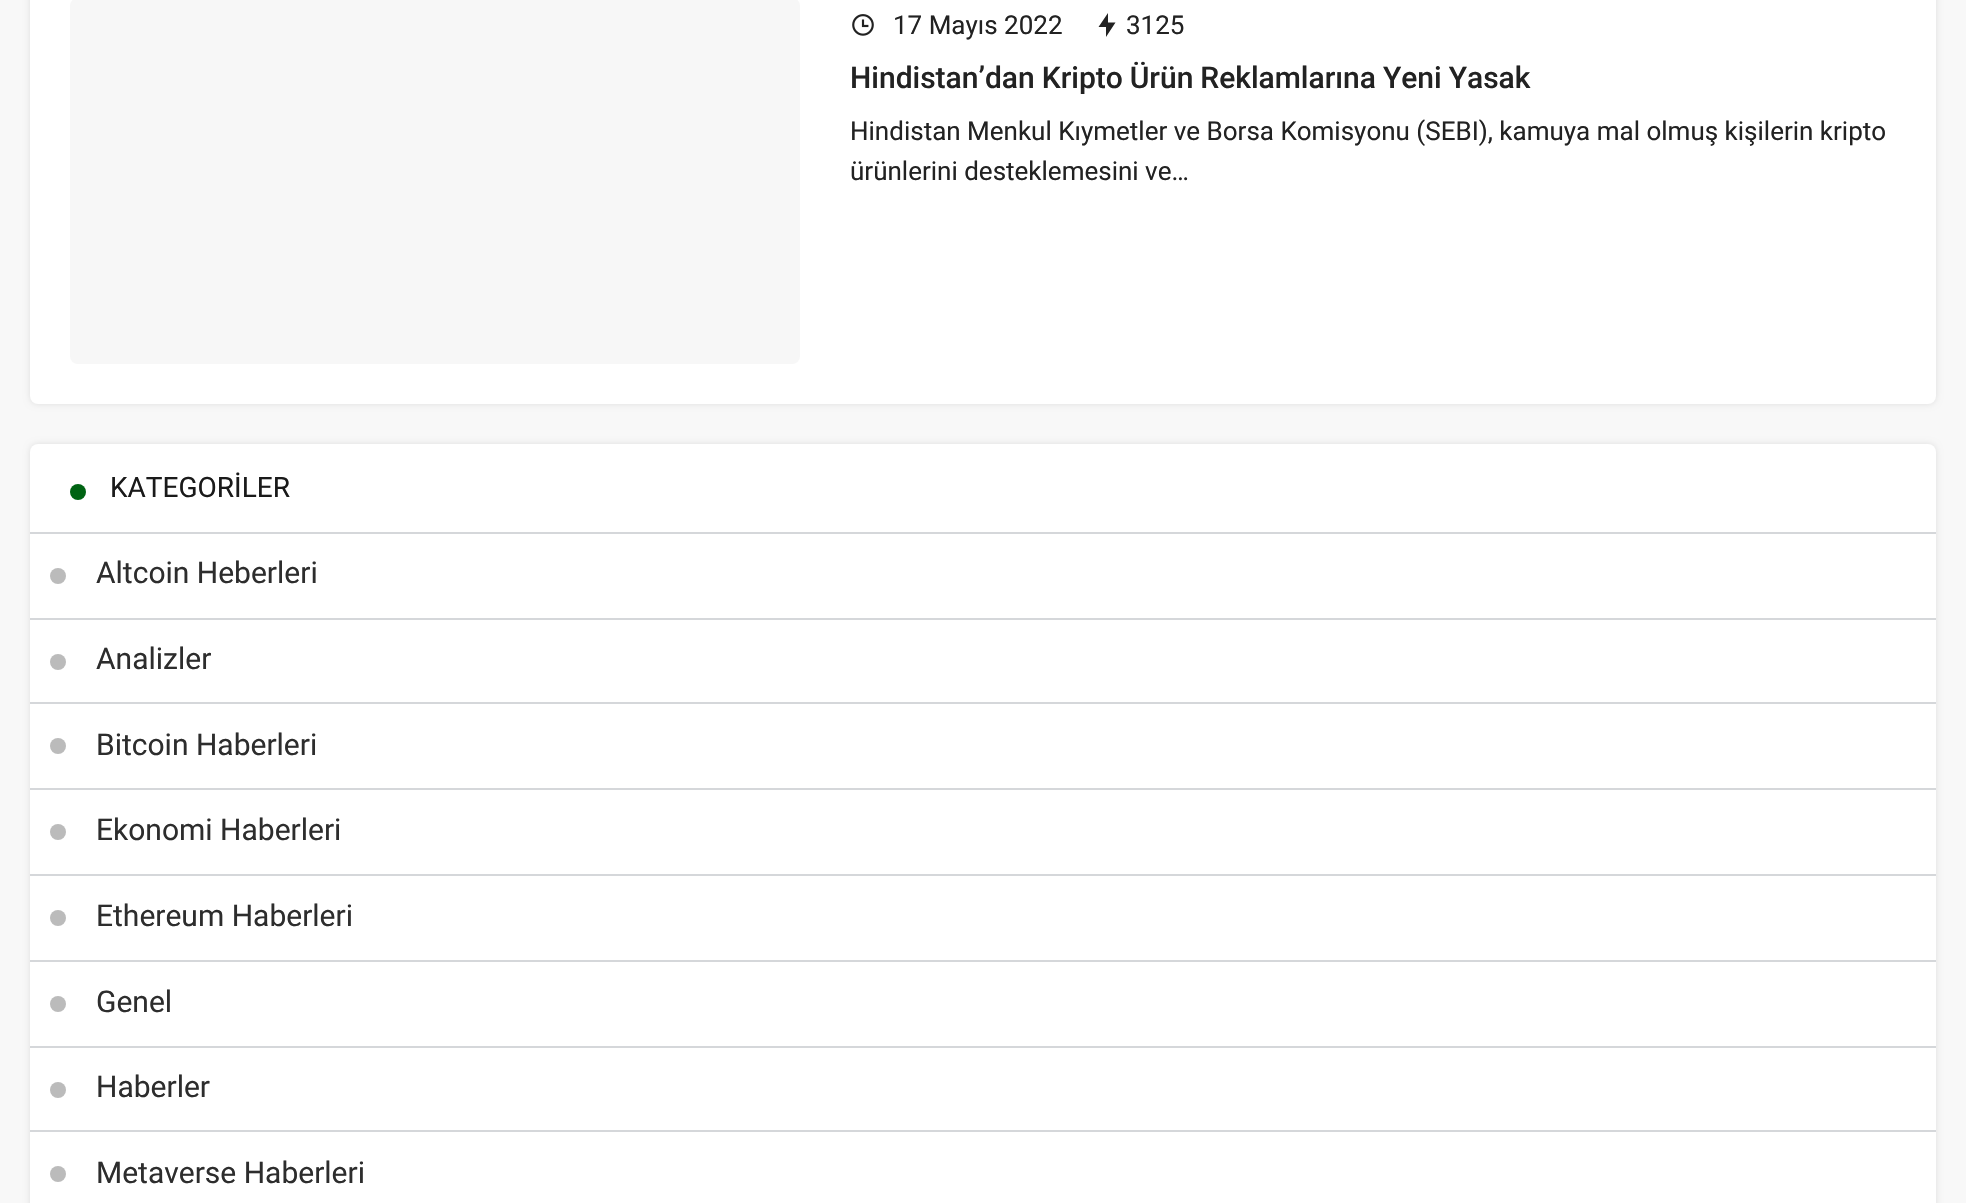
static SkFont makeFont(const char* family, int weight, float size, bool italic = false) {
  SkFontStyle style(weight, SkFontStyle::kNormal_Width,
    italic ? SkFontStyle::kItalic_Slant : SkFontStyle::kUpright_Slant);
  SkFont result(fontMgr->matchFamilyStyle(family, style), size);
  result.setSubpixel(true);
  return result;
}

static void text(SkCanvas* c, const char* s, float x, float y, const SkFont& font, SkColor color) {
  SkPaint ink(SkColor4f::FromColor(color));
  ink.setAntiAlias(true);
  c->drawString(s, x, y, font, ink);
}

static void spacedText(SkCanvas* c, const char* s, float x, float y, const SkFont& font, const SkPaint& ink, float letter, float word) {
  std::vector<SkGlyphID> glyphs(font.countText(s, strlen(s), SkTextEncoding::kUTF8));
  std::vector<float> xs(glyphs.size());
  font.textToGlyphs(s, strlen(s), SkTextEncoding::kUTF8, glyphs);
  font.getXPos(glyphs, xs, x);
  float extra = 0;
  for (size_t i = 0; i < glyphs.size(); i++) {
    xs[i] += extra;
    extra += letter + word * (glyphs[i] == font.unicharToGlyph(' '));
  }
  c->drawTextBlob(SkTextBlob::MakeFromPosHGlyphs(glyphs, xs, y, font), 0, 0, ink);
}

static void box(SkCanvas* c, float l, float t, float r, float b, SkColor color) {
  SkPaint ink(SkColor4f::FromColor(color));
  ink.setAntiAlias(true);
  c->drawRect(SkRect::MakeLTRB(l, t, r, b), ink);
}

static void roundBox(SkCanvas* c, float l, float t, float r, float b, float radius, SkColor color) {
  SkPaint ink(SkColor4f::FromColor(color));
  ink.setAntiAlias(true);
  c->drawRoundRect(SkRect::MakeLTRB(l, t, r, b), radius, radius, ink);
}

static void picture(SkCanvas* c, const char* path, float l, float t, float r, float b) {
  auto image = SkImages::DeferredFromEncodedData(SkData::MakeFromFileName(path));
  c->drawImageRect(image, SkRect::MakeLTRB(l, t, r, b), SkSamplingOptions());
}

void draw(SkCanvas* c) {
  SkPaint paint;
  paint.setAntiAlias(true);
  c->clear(0xfff8f8f8);
  paint.setColor(0x1a000000);
  paint.setMaskFilter(SkMaskFilter::MakeBlur(kNormal_SkBlurStyle, 3));
  c->drawRoundRect(SkRect::MakeLTRB(30, -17, 1936, 404), 8, 8, paint);
  paint.setMaskFilter(nullptr);
  roundBox(c, 30, -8, 1936, 404, 8, 0xffffffff);
  roundBox(c, 70, -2, 800, 364, 8, 0xfff7f7f7);
  picture(c, "img_01.png", 852, 14, 874, 36);
  SkFont face1 = makeFont("Roboto", 400, 26);
  text(c, "17 Mayıs 2022", 893, 34, face1, 0xff222222);
  paint.setColor(0xff222222);
  c->drawPath(SkPathBuilder().moveTo(1108, 22.5f).lineTo(1115.5f, 22.5f).lineTo(1106, 37).lineTo(1106, 27).lineTo(1098.5f, 27).lineTo(1108, 13).close().detach(), paint);
  text(c, "3125", 1126, 34, face1, 0xff222222);
  SkFont face2 = makeFont("Roboto", 500, 30);
  spacedText(c, "Hindistan’dan Kripto Ürün Reklamlarına Yeni Yasak", 850, 88, face2, paint, 0, -0.5f);
  text(c, "Hindistan Menkul Kıymetler ve Borsa Komisyonu (SEBI), kamuya mal olmuş kişilerin kripto", 850, 140, face1, 0xff222222);
  text(c, "ürünlerini desteklemesini ve…", 850, 180, face1, 0xff222222);
  paint.setColor(0x1a000000);
  paint.setMaskFilter(SkMaskFilter::MakeBlur(kNormal_SkBlurStyle, 3));
  c->drawRoundRect(SkRect::MakeLTRB(30, 444, 1936, 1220), 8, 8, paint);
  paint.setMaskFilter(nullptr);
  roundBox(c, 30, 444, 1936, 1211, 8, 0xffffffff);
  box(c, 30, 532, 1936, 534, 0xffd5d7da);
  paint.setColor(0xff006313);
  c->drawCircle(78, 492, 8, paint);
  SkFont face3 = makeFont("Roboto", 400, 28);
  text(c, "KATEGORİLER", 110, 497, face3, 0xff1a1a1a);
  box(c, 30, 618, 1936, 620, 0xffd5d7da);
  paint.setColor(0xffbbbbbb);
  c->drawCircle(58, 576, 8, paint);
  SkFont face4 = makeFont("Roboto", 400, 30);
  text(c, "Altcoin Heberleri", 96, 583, face4, 0xff2d2d2d);
  box(c, 30, 702, 1936, 704, 0xffd5d7da);
  c->drawCircle(58, 662, 8, paint);
  text(c, "Analizler", 96, 669, face4, 0xff2d2d2d);
  box(c, 30, 788, 1936, 790, 0xffd5d7da);
  c->drawCircle(58, 746, 8, paint);
  text(c, "Bitcoin Haberleri", 96, 755, face4, 0xff2d2d2d);
  box(c, 30, 874, 1936, 876, 0xffd5d7da);
  c->drawCircle(58, 832, 8, paint);
  text(c, "Ekonomi Haberleri", 96, 840, face4, 0xff2d2d2d);
  box(c, 30, 960, 1936, 962, 0xffd5d7da);
  c->drawCircle(58, 918, 8, paint);
  text(c, "Ethereum Haberleri", 96, 926, face4, 0xff2d2d2d);
  box(c, 30, 1046, 1936, 1048, 0xffd5d7da);
  c->drawCircle(58, 1004, 8, paint);
  text(c, "Genel", 96, 1012, face4, 0xff2d2d2d);
  box(c, 30, 1130, 1936, 1132, 0xffd5d7da);
  c->drawCircle(58, 1090, 8, paint);
  text(c, "Haberler", 96, 1097, face4, 0xff2d2d2d);
  c->drawCircle(58, 1174, 8, paint);
  text(c, "Metaverse Haberleri", 96, 1183, face4, 0xff2d2d2d);
}
